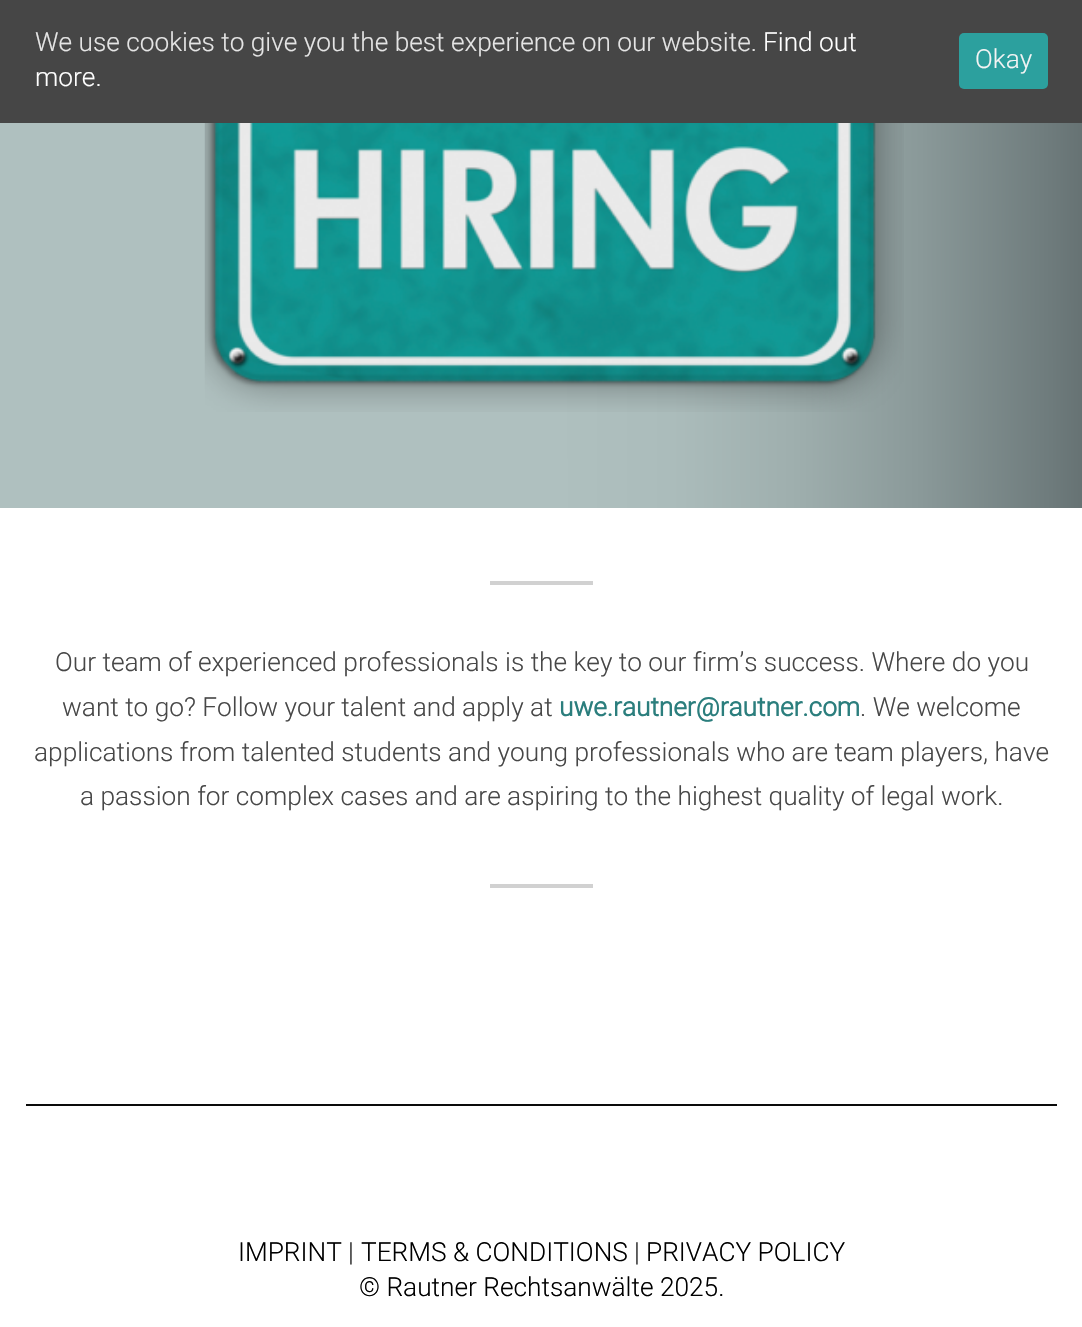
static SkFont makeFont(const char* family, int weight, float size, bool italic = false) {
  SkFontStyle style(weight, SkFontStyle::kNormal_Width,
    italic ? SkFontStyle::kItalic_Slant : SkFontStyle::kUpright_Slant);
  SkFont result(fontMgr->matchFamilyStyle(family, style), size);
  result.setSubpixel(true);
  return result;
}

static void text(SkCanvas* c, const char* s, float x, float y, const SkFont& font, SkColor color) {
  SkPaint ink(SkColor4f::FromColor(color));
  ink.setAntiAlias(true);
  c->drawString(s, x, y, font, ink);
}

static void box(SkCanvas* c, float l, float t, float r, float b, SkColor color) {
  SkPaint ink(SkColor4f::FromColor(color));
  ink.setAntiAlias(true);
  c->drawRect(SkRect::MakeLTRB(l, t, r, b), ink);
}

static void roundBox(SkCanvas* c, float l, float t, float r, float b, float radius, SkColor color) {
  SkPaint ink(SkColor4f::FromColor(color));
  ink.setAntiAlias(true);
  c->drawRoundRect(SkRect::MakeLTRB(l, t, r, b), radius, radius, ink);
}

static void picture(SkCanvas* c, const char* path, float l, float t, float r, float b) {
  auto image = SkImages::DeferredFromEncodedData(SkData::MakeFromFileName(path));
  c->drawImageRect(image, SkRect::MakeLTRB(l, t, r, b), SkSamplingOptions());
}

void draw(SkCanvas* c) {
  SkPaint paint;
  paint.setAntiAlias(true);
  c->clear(0xffffffff);
  box(c, 0, 0, 1082, 123, 0xff464646);
  SkFont face1 = makeFont("Roboto", 300, 26.25f);
  text(c, "We use cookies to give you the best experience on our website.", 35, 51, face1, 0xffe5e5e5);
  text(c, "Find out", 763, 51, face1, 0xffffffff);
  text(c, "more.", 35, 86, face1, 0xffffffff);
  roundBox(c, 959, 33, 1048, 89, 5, 0xff2ca09e);
  text(c, "Okay", 975, 68, face1, 0xfff4f4f4);
  {
    const SkColor colors[] = {0xffafc0bf, 0xffabbcbb, 0xff9fafae, 0xff8a9999, 0xff6e7b7c, 0xff667273};
    const float stops[] = {0.51f, 0.62f, 0.73f, 0.85f, 0.97f, 1};
    const SkPoint ends[] = {{0, 158}, {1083, 157}};
    paint.setShader(SkGradientShader::MakeLinear(ends, colors, stops, 6, SkTileMode::kClamp));
    paint.setAlpha(255);
  }
  c->drawRect(SkRect::MakeLTRB(0, 123, 1082, 508), paint);
  picture(c, "img_01.png", 204, 123, 904, 412);
  box(c, 490, 581, 593, 585, 0xffd1d1d1);
  text(c, "Our team of experienced professionals is the key to our firm’s success. Where do you", 55, 671, face1, 0xff474747);
  text(c, "want to go? Follow your talent and apply at", 62, 716, face1, 0xff474747);
  SkFont face2 = makeFont("Roboto", 700, 26.25f);
  text(c, "uwe.rautner@rautner.com", 559, 716, face2, 0xff2b7e7d);
  text(c, ". We welcome", 860, 716, face1, 0xff474747);
  text(c, "applications from talented students and young professionals who are team players, have", 34, 761, face1, 0xff474747);
  text(c, "a passion for complex cases and are aspiring to the highest quality of legal work.", 80, 805, face1, 0xff474747);
  box(c, 490, 884, 593, 888, 0xffd1d1d1);
  box(c, 26, 1104, 1057, 1106, 0xff0a0a0a);
  text(c, "IMPRINT", 238, 1261, face1, 0xff000000);
  text(c, "|", 348, 1261, face1, 0xff282828);
  text(c, "TERMS & CONDITIONS", 361, 1261, face1, 0xff000000);
  text(c, "|", 634, 1261, face1, 0xff282828);
  text(c, "PRIVACY POLICY", 646, 1261, face1, 0xff000000);
  text(c, "© Rautner Rechtsanwälte 2025.", 359, 1296, face1, 0xff000000);
}
